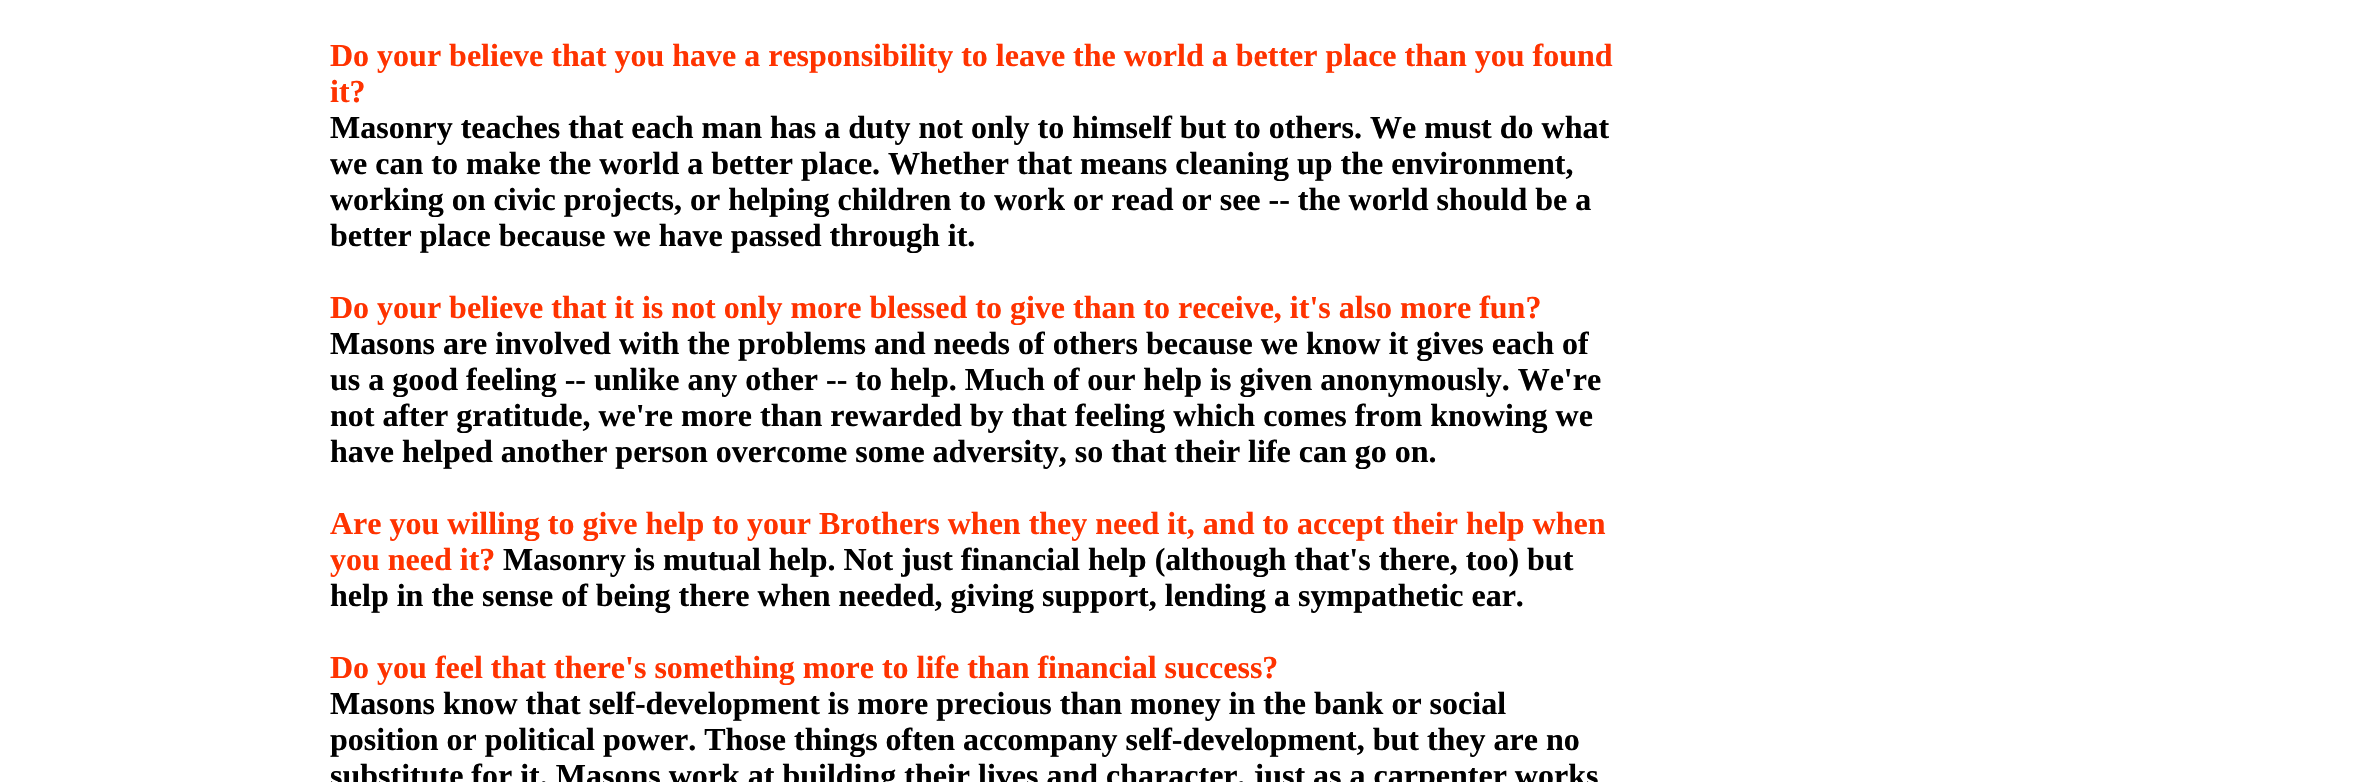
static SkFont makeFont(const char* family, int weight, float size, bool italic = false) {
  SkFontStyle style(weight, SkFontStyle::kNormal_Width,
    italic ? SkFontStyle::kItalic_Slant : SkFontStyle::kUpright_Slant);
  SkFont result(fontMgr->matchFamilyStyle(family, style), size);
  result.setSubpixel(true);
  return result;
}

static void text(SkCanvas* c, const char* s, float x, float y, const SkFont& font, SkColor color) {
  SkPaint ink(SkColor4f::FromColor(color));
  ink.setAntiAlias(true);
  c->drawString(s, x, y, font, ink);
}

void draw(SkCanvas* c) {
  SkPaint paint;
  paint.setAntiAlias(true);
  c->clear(0xffffffff);
  SkFont face1 = makeFont("Liberation Serif", 700, 32);
  text(c, "Do your believe that you have a responsibility to leave the world a better place than you found", 330, 66, face1, 0xffff3300);
  text(c, "it?", 330, 102, face1, 0xffff3300);
  text(c, "Masonry teaches that each man has a duty not only to himself but to others. We must do what", 330, 138, face1, 0xff000000);
  text(c, "we can to make the world a better place. Whether that means cleaning up the environment,", 330, 174, face1, 0xff000000);
  text(c, "working on civic projects, or helping children to work or read or see -- the world should be a", 330, 210, face1, 0xff000000);
  text(c, "better place because we have passed through it.", 330, 246, face1, 0xff000000);
  text(c, "Do your believe that it is not only more blessed to give than to receive, it's also more fun?", 330, 318, face1, 0xffff3300);
  text(c, "Masons are involved with the problems and needs of others because we know it gives each of", 330, 354, face1, 0xff000000);
  text(c, "us a good feeling -- unlike any other -- to help. Much of our help is given anonymously. We're", 330, 390, face1, 0xff000000);
  text(c, "not after gratitude, we're more than rewarded by that feeling which comes from knowing we", 330, 426, face1, 0xff000000);
  text(c, "have helped another person overcome some adversity, so that their life can go on.", 330, 462, face1, 0xff000000);
  text(c, "Are you willing to give help to your Brothers when they need it, and to accept their help when", 330, 534, face1, 0xffff3300);
  text(c, "you need it?", 330, 570, face1, 0xffff3300);
  text(c, "Masonry is mutual help. Not just financial help (although that's there, too) but", 503, 570, face1, 0xff000000);
  text(c, "help in the sense of being there when needed, giving support, lending a sympathetic ear.", 330, 606, face1, 0xff000000);
  text(c, "Do you feel that there's something more to life than financial success?", 330, 678, face1, 0xffff3300);
  text(c, "Masons know that self-development is more precious than money in the bank or social", 330, 714, face1, 0xff000000);
  text(c, "position or political power. Those things often accompany self-development, but they are no", 330, 750, face1, 0xff000000);
  text(c, "substitute for it. Masons work at building their lives and character, just as a carpenter works", 330, 786, face1, 0xff000000);
}
